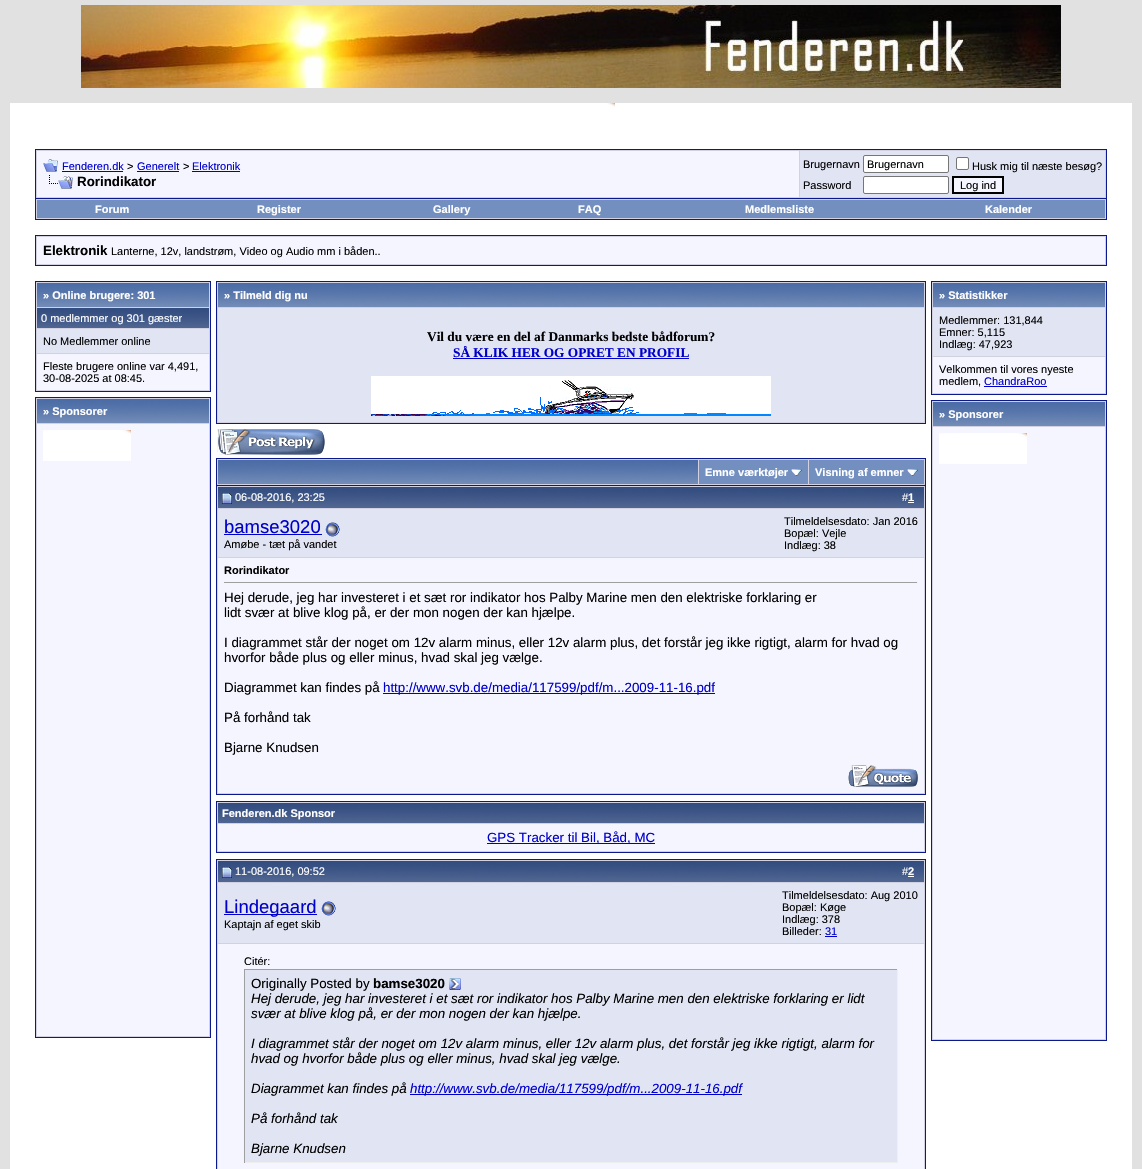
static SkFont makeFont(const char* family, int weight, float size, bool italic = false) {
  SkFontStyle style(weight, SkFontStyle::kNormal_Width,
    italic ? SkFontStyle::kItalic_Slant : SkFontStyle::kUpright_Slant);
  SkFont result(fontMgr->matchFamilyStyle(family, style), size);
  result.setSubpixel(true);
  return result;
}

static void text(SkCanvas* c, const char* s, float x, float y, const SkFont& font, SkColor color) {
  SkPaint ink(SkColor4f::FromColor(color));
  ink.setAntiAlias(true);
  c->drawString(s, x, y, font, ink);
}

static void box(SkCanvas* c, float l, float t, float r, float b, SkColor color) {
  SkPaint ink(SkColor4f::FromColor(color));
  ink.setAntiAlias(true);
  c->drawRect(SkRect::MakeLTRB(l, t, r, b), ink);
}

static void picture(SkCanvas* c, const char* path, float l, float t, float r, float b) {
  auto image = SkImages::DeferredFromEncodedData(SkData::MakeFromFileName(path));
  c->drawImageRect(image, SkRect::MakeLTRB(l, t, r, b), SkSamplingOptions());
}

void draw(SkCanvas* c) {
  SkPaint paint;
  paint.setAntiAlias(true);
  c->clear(0xffe1e1e2);
  picture(c, "img_01.png", 81, 5, 1061, 88);
  box(c, 10, 103, 1132, 1169, 0xffffffff);
  picture(c, "img_02.png", 607, 103, 615, 107);
  paint.setColor(0xffd1d1e1);
  c->drawRect(SkRect::MakeLTRB(35.5f, 149.5f, 1106.5f, 198.5f), paint);
  paint.setStyle(SkPaint::kStroke_Style);
  paint.setStrokeWidth(1);
  paint.setColor(0xff0b198c);
  c->drawRect(SkRect::MakeLTRB(35.5f, 149.5f, 1106.5f, 198.5f), paint);
  box(c, 37, 151, 799, 197, 0xfff5f5ff);
  picture(c, "img_03.png", 43, 159, 58, 172);
  SkFont face1 = makeFont("Liberation Sans", 400, 11);
  text(c, "Fenderen.dk", 62, 170, face1, 0xff0000cc);
  box(c, 62, 171, 123, 172, 0xff0000cc);
  text(c, ">", 127, 170, face1, 0xff000000);
  text(c, "Generelt", 137, 170, face1, 0xff0000cc);
  box(c, 137, 171, 179, 172, 0xff0000cc);
  text(c, ">", 183, 170, face1, 0xff000000);
  text(c, "Elektronik", 192, 170, face1, 0xff0000cc);
  box(c, 192, 171, 240, 172, 0xff0000cc);
  picture(c, "img_04.png", 49, 175, 73, 189);
  SkFont face2 = makeFont("Liberation Sans", 700, 13.33f);
  text(c, "Rorindikator", 77, 186, face2, 0xff000000);
  box(c, 800, 151, 1105, 197, 0xffe1e4f2);
  text(c, "Brugernavn", 803, 168, face1, 0xff000000);
  paint.setStyle(SkPaint::kFill_Style);
  paint.setColor(0xffffffff);
  c->drawRoundRect(SkRect::MakeLTRB(863.5f, 155.5f, 948.5f, 172.5f), 1.5f, 1.5f, paint);
  paint.setStyle(SkPaint::kStroke_Style);
  paint.setColor(0xff767676);
  c->drawRoundRect(SkRect::MakeLTRB(863.5f, 155.5f, 948.5f, 172.5f), 1.5f, 1.5f, paint);
  text(c, "Brugernavn", 867, 168, face1, 0xff000000);
  paint.setStyle(SkPaint::kFill_Style);
  paint.setColor(0xffffffff);
  c->drawRoundRect(SkRect::MakeLTRB(956.5f, 157.5f, 968.5f, 169.5f), 1.5f, 1.5f, paint);
  paint.setStyle(SkPaint::kStroke_Style);
  paint.setColor(0xff767676);
  c->drawRoundRect(SkRect::MakeLTRB(956.5f, 157.5f, 968.5f, 169.5f), 1.5f, 1.5f, paint);
  text(c, "Husk mig til næste besøg?", 972, 170, face1, 0xff000000);
  text(c, "Password", 803, 189, face1, 0xff000000);
  paint.setStyle(SkPaint::kFill_Style);
  paint.setColor(0xffffffff);
  c->drawRoundRect(SkRect::MakeLTRB(863.5f, 176.5f, 948.5f, 193.5f), 1.5f, 1.5f, paint);
  paint.setStyle(SkPaint::kStroke_Style);
  paint.setColor(0xff767676);
  c->drawRoundRect(SkRect::MakeLTRB(863.5f, 176.5f, 948.5f, 193.5f), 1.5f, 1.5f, paint);
  paint.setStyle(SkPaint::kFill_Style);
  paint.setColor(0xfff5f5ff);
  c->drawRect(SkRect::MakeLTRB(953, 177, 1003, 193), paint);
  paint.setStyle(SkPaint::kStroke_Style);
  paint.setStrokeWidth(2);
  paint.setColor(0xff000000);
  c->drawRect(SkRect::MakeLTRB(953, 177, 1003, 193), paint);
  text(c, "Log ind", 960, 189, face1, 0xff000000);
  box(c, 36, 199, 1106, 219, 0xffd1d1e1);
  box(c, 1106, 199, 1107, 220, 0xff0b198c);
  box(c, 35, 219, 1107, 220, 0xff0b198c);
  box(c, 35, 199, 36, 220, 0xff0b198c);
  box(c, 37, 200, 1105, 218, 0xff738fbf);
  SkFont face3 = makeFont("Liberation Sans", 700, 11);
  text(c, "Forum", 95, 213, face3, 0xffffffff);
  text(c, "Register", 257, 213, face3, 0xffffffff);
  text(c, "Gallery", 433, 213, face3, 0xffffffff);
  text(c, "FAQ", 578, 213, face3, 0xffffffff);
  text(c, "Medlemsliste", 745, 213, face3, 0xffffffff);
  text(c, "Kalender", 985, 213, face3, 0xffffffff);
  paint.setStyle(SkPaint::kFill_Style);
  paint.setColor(0xffd1d1e1);
  c->drawRect(SkRect::MakeLTRB(35.5f, 235.5f, 1106.5f, 265.5f), paint);
  paint.setStyle(SkPaint::kStroke_Style);
  paint.setStrokeWidth(1);
  paint.setColor(0xff0b198c);
  c->drawRect(SkRect::MakeLTRB(35.5f, 235.5f, 1106.5f, 265.5f), paint);
  box(c, 37, 237, 1105, 264, 0xfff5f5ff);
  text(c, "Elektronik", 43, 255, face2, 0xff000000);
  text(c, "Lanterne, 12v, landstrøm, Video og Audio mm i båden..", 111, 255, face1, 0xff000000);
  paint.setStyle(SkPaint::kFill_Style);
  paint.setColor(0xffd1d1e1);
  c->drawRect(SkRect::MakeLTRB(35.5f, 281.5f, 210.5f, 391.5f), paint);
  paint.setStyle(SkPaint::kStroke_Style);
  paint.setColor(0xff0b198c);
  c->drawRect(SkRect::MakeLTRB(35.5f, 281.5f, 210.5f, 391.5f), paint);
  picture(c, "img_05.png", 37, 283, 209, 307);
  text(c, "» Online brugere: 301", 43, 299, face3, 0xffffffff);
  picture(c, "img_06.png", 37, 308, 209, 328);
  text(c, "0 medlemmer og 301 gæster", 41, 322, face1, 0xffffffff);
  box(c, 37, 329, 209, 353, 0xffe1e4f2);
  text(c, "No Medlemmer online", 43, 345, face1, 0xff000000);
  box(c, 37, 354, 209, 390, 0xfff5f5ff);
  text(c, "Fleste brugere online var 4,491,", 43, 370, face1, 0xff000000);
  text(c, "30-08-2025 at 08:45.", 43, 382, face1, 0xff000000);
  paint.setStyle(SkPaint::kFill_Style);
  paint.setColor(0xffd1d1e1);
  c->drawRect(SkRect::MakeLTRB(35.5f, 397.5f, 210.5f, 1037.5f), paint);
  paint.setStyle(SkPaint::kStroke_Style);
  paint.setColor(0xff0b198c);
  c->drawRect(SkRect::MakeLTRB(35.5f, 397.5f, 210.5f, 1037.5f), paint);
  picture(c, "img_05.png", 37, 399, 209, 423);
  text(c, "» Sponsorer", 43, 415, face3, 0xffffffff);
  box(c, 37, 424, 209, 1036, 0xfff5f5ff);
  picture(c, "img_07.png", 43, 430, 131, 461);
  paint.setStyle(SkPaint::kFill_Style);
  paint.setColor(0xffd1d1e1);
  c->drawRect(SkRect::MakeLTRB(216.5f, 281.5f, 925.5f, 423.5f), paint);
  paint.setStyle(SkPaint::kStroke_Style);
  paint.setColor(0xff0b198c);
  c->drawRect(SkRect::MakeLTRB(216.5f, 281.5f, 925.5f, 423.5f), paint);
  picture(c, "img_08.png", 218, 283, 924, 307);
  text(c, "» Tilmeld dig nu", 224, 299, face3, 0xffffffff);
  box(c, 218, 308, 924, 422, 0xffe1e4f2);
  SkFont face4 = makeFont("Liberation Serif", 700, 13.33f);
  text(c, "Vil du være en del af Danmarks bedste bådforum?", 427, 341, face4, 0xff000000);
  text(c, "SÅ KLIK HER OG OPRET EN PROFIL", 453, 357, face4, 0xff0000cc);
  box(c, 453, 358, 689, 359, 0xff0000cc);
  picture(c, "img_09.png", 371, 376, 771, 416);
  picture(c, "img_10.png", 217, 429, 325, 455);
  box(c, 217, 459, 925, 485, 0xffd1d1e1);
  box(c, 216, 458, 926, 459, 0xff0b198c);
  box(c, 925, 458, 926, 485, 0xff0b198c);
  box(c, 216, 458, 217, 485, 0xff0b198c);
  picture(c, "img_11.png", 218, 460, 698, 484);
  box(c, 699, 460, 808, 484, 0xff738fbf);
  text(c, "Emne værktøjer", 705, 476, face3, 0xffffffff);
  picture(c, "img_12.png", 791, 469, 802, 476);
  box(c, 809, 460, 924, 484, 0xff738fbf);
  text(c, "Visning af emner", 815, 476, face3, 0xffffffff);
  picture(c, "img_12.png", 907, 469, 918, 476);
  paint.setStyle(SkPaint::kFill_Style);
  paint.setColor(0xffd1d1e1);
  c->drawRect(SkRect::MakeLTRB(216.5f, 485.5f, 925.5f, 794.5f), paint);
  paint.setStyle(SkPaint::kStroke_Style);
  paint.setColor(0xff0b198c);
  c->drawRect(SkRect::MakeLTRB(216.5f, 485.5f, 925.5f, 794.5f), paint);
  picture(c, "img_13.png", 218, 487, 924, 508);
  picture(c, "img_14.png", 222, 493, 232, 504);
  text(c, "06-08-2016, 23:25", 235, 501, face1, 0xffffffff);
  text(c, "#", 902, 501, face1, 0xffffffff);
  text(c, "1", 908, 501, face3, 0xffffffff);
  box(c, 908, 502, 914, 503, 0xffffffff);
  box(c, 218, 509, 924, 557, 0xffe1e4f2);
  SkFont face5 = makeFont("Liberation Sans", 400, 18.5f);
  text(c, "bamse3020", 224, 533, face5, 0xff0000cc);
  box(c, 224, 534, 322, 535, 0xff0000cc);
  picture(c, "img_15.png", 325, 522, 340, 537);
  text(c, "Amøbe - tæt på vandet", 224, 548, face1, 0xff000000);
  text(c, "Tilmeldelsesdato: Jan 2016", 784, 525, face1, 0xff000000);
  text(c, "Bopæl: Vejle", 784, 537, face1, 0xff000000);
  text(c, "Indlæg: 38", 784, 549, face1, 0xff000000);
  box(c, 218, 558, 924, 793, 0xfff5f5ff);
  text(c, "Rorindikator", 224, 574, face3, 0xff000000);
  box(c, 224, 582, 918, 583, 0xff9f9f9f);
  box(c, 917, 582, 918, 583, 0xffeeeeee);
  SkFont face6 = makeFont("Liberation Sans", 400, 13.33f);
  text(c, "Hej derude, jeg har investeret i et sæt ror indikator hos Palby Marine men den elektriske forklaring er", 224, 602, face6, 0xff000000);
  text(c, "lidt svær at blive klog på, er der mon nogen der kan hjælpe.", 224, 617, face6, 0xff000000);
  text(c, "I diagrammet står der noget om 12v alarm minus, eller 12v alarm plus, det forstår jeg ikke rigtigt, alarm for hvad og", 224, 647, face6, 0xff000000);
  text(c, "hvorfor både plus og eller minus, hvad skal jeg vælge.", 224, 662, face6, 0xff000000);
  text(c, "Diagrammet kan findes på", 224, 692, face6, 0xff000000);
  box(c, 383, 693, 715, 694, 0xff0000cc);
  text(c, "http://www.svb.de/media/117599/pdf/m...2009-11-16.pdf", 383, 692, face6, 0xff0000cc);
  text(c, "På forhånd tak", 224, 722, face6, 0xff000000);
  text(c, "Bjarne Knudsen", 224, 752, face6, 0xff000000);
  picture(c, "img_16.png", 848, 765, 918, 787);
  paint.setStyle(SkPaint::kFill_Style);
  paint.setColor(0xffd1d1e1);
  c->drawRect(SkRect::MakeLTRB(216.5f, 801.5f, 925.5f, 852.5f), paint);
  paint.setStyle(SkPaint::kStroke_Style);
  paint.setColor(0xff0b198c);
  c->drawRect(SkRect::MakeLTRB(216.5f, 801.5f, 925.5f, 852.5f), paint);
  picture(c, "img_17.png", 218, 803, 924, 823);
  text(c, "Fenderen.dk Sponsor", 222, 817, face3, 0xffffffff);
  box(c, 218, 824, 924, 851, 0xfff5f5ff);
  box(c, 487, 843, 655, 844, 0xff0000cc);
  text(c, "GPS Tracker til Bil, Båd, MC", 487, 842, face6, 0xff0000cc);
  paint.setStyle(SkPaint::kFill_Style);
  paint.setColor(0xffd1d1e1);
  c->drawRect(SkRect::MakeLTRB(216.5f, 859.5f, 925.5f, 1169.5f), paint);
  paint.setStyle(SkPaint::kStroke_Style);
  paint.setColor(0xff0b198c);
  c->drawRect(SkRect::MakeLTRB(216.5f, 859.5f, 925.5f, 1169.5f), paint);
  picture(c, "img_13.png", 218, 861, 924, 882);
  picture(c, "img_14.png", 222, 867, 232, 878);
  text(c, "11-08-2016, 09:52", 235, 875, face1, 0xffffffff);
  text(c, "#", 902, 875, face1, 0xffffffff);
  text(c, "2", 908, 875, face3, 0xffffffff);
  box(c, 908, 876, 914, 877, 0xffffffff);
  box(c, 218, 883, 924, 943, 0xffe1e4f2);
  box(c, 224, 914, 317, 915, 0xff0000cc);
  text(c, "Lindegaard", 224, 913, face5, 0xff0000cc);
  picture(c, "img_15.png", 321, 901, 336, 916);
  text(c, "Kaptajn af eget skib", 224, 928, face1, 0xff000000);
  text(c, "Tilmeldelsesdato: Aug 2010", 782, 899, face1, 0xff000000);
  text(c, "Bopæl: Køge", 782, 911, face1, 0xff000000);
  text(c, "Indlæg: 378", 782, 923, face1, 0xff000000);
  text(c, "Billeder:", 782, 935, face1, 0xff000000);
  text(c, "31", 825, 935, face1, 0xff0000cc);
  box(c, 825, 936, 837, 937, 0xff0000cc);
  box(c, 218, 944, 924, 1169, 0xfff5f5ff);
  text(c, "Citér:", 244, 965, face1, 0xff000000);
  box(c, 245, 970, 897, 1162, 0xffe1e4f2);
  box(c, 244, 969, 898, 970, 0xff9f9f9f);
  box(c, 897, 969, 898, 1163, 0xffeeeeee);
  box(c, 244, 1162, 898, 1163, 0xffeeeeee);
  box(c, 244, 969, 245, 1163, 0xff9f9f9f);
  text(c, "Originally Posted by", 251, 988, face6, 0xff000000);
  text(c, "bamse3020", 373, 988, face2, 0xff000000);
  picture(c, "img_18.png", 449, 978, 461, 990);
  SkFont face7 = makeFont("Liberation Sans", 400, 13.33f, true);
  text(c, "Hej derude, jeg har investeret i et sæt ror indikator hos Palby Marine men den elektriske forklaring er lidt", 251, 1003, face7, 0xff000000);
  text(c, "svær at blive klog på, er der mon nogen der kan hjælpe.", 251, 1018, face7, 0xff000000);
  text(c, "I diagrammet står der noget om 12v alarm minus, eller 12v alarm plus, det forstår jeg ikke rigtigt, alarm for", 251, 1048, face7, 0xff000000);
  text(c, "hvad og hvorfor både plus og eller minus, hvad skal jeg vælge.", 251, 1063, face7, 0xff000000);
  text(c, "Diagrammet kan findes på", 251, 1093, face7, 0xff000000);
  box(c, 410, 1094, 742, 1095, 0xff0000cc);
  text(c, "http://www.svb.de/media/117599/pdf/m...2009-11-16.pdf", 410, 1093, face7, 0xff0000cc);
  text(c, "På forhånd tak", 251, 1123, face7, 0xff000000);
  text(c, "Bjarne Knudsen", 251, 1153, face7, 0xff000000);
  paint.setStyle(SkPaint::kFill_Style);
  paint.setColor(0xffd1d1e1);
  c->drawRect(SkRect::MakeLTRB(931.5f, 281.5f, 1106.5f, 394.5f), paint);
  paint.setStyle(SkPaint::kStroke_Style);
  paint.setColor(0xff0b198c);
  c->drawRect(SkRect::MakeLTRB(931.5f, 281.5f, 1106.5f, 394.5f), paint);
  picture(c, "img_05.png", 933, 283, 1105, 307);
  text(c, "» Statistikker", 939, 299, face3, 0xffffffff);
  box(c, 933, 308, 1105, 356, 0xffe1e4f2);
  text(c, "Medlemmer: 131,844", 939, 324, face1, 0xff000000);
  text(c, "Emner: 5,115", 939, 336, face1, 0xff000000);
  text(c, "Indlæg: 47,923", 939, 348, face1, 0xff000000);
  box(c, 933, 357, 1105, 393, 0xfff5f5ff);
  text(c, "Velkommen til vores nyeste", 939, 373, face1, 0xff000000);
  text(c, "medlem,", 939, 385, face1, 0xff000000);
  text(c, "ChandraRoo", 984, 385, face1, 0xff0000cc);
  box(c, 984, 386, 1047, 387, 0xff0000cc);
  paint.setStyle(SkPaint::kFill_Style);
  paint.setColor(0xffd1d1e1);
  c->drawRect(SkRect::MakeLTRB(931.5f, 400.5f, 1106.5f, 1040.5f), paint);
  paint.setStyle(SkPaint::kStroke_Style);
  paint.setColor(0xff0b198c);
  c->drawRect(SkRect::MakeLTRB(931.5f, 400.5f, 1106.5f, 1040.5f), paint);
  picture(c, "img_05.png", 933, 402, 1105, 426);
  text(c, "» Sponsorer", 939, 418, face3, 0xffffffff);
  box(c, 933, 427, 1105, 1039, 0xfff5f5ff);
  picture(c, "img_07.png", 939, 433, 1027, 464);
}
